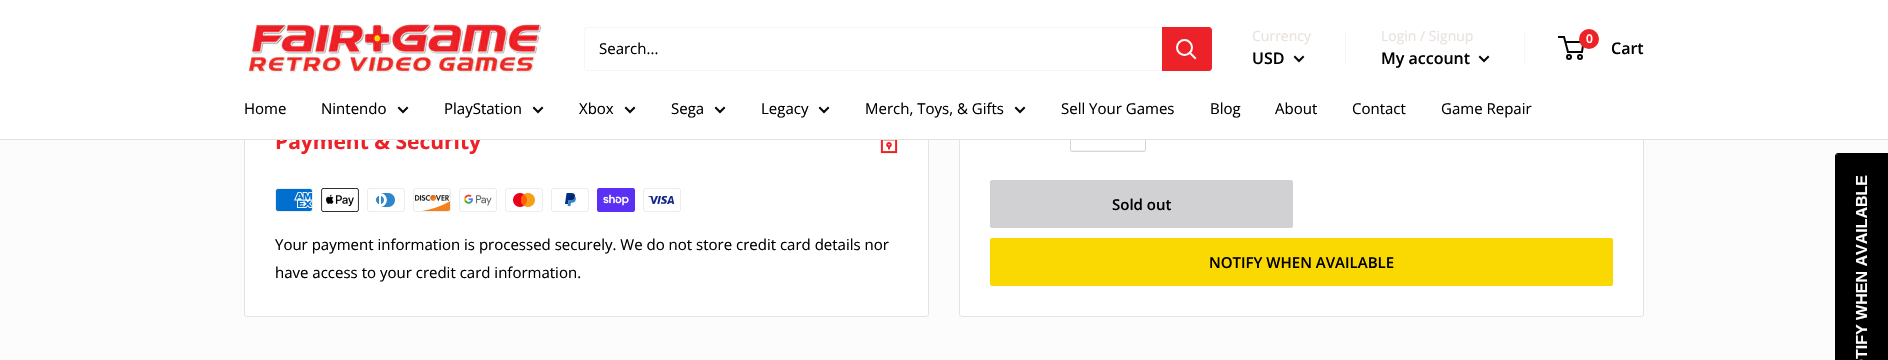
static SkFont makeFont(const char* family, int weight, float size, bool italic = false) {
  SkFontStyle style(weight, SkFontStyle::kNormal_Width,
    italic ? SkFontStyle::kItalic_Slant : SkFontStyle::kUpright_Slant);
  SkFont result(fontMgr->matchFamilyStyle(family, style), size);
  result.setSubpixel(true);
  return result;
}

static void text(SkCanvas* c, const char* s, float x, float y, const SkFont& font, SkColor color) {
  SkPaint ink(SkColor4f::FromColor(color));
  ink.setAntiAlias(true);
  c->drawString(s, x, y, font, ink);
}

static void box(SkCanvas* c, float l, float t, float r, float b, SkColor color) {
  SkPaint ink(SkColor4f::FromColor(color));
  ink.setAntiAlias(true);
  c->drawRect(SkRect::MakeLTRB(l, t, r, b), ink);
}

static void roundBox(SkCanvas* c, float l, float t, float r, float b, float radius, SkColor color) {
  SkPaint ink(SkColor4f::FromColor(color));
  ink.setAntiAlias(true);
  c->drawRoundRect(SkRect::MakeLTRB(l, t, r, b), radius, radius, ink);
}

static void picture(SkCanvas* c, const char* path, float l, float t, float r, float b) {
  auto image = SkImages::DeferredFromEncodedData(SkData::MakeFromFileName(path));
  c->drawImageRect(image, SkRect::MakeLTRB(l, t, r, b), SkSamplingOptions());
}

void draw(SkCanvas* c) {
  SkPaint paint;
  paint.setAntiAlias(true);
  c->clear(0xfffcfcfc);
  paint.setColor(0xffffffff);
  c->drawRoundRect(SkRect::MakeLTRB(244.5f, 95.5f, 928.5f, 316.5f), 2.5f, 2.5f, paint);
  paint.setStyle(SkPaint::kStroke_Style);
  paint.setStrokeWidth(1);
  paint.setColor(0xffe7e2de);
  c->drawRoundRect(SkRect::MakeLTRB(244.5f, 95.5f, 928.5f, 316.5f), 2.5f, 2.5f, paint);
  SkFont face1 = makeFont("Open Sans", 700, 21);
  text(c, "Payment & Security", 275, 149, face1, 0xffed2228);
  paint.setStyle(SkPaint::kFill_Style);
  paint.setColor(0xffffffff);
  c->drawRoundRect(SkRect::MakeLTRB(959.5f, -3.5f, 1643.5f, 316.5f), 2.5f, 2.5f, paint);
  paint.setStyle(SkPaint::kStroke_Style);
  paint.setColor(0xffe7e2de);
  c->drawRoundRect(SkRect::MakeLTRB(959.5f, -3.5f, 1643.5f, 316.5f), 2.5f, 2.5f, paint);
  paint.setStyle(SkPaint::kFill_Style);
  paint.setColor(0xfff5f2f1);
  c->drawPath(SkPathBuilder().moveTo(1071, 149).lineTo(1072, 151).lineTo(1144, 151).cubicTo(1145, 151, 1145, 150, 1145, 149).lineTo(1144, 150).lineTo(1072, 150).close().detach(), paint);
  paint.setStyle(SkPaint::kStroke_Style);
  paint.setColor(0xffdcd5cf);
  c->drawRoundRect(SkRect::MakeLTRB(1070.5f, 108.5f, 1145.5f, 151.5f), 1.5f, 1.5f, paint);
  box(c, 0, 0, 1888, 139, 0xffffffff);
  picture(c, "img_01.png", 248, 24, 542, 73);
  paint.setStyle(SkPaint::kFill_Style);
  paint.setColor(0xfff8f6f5);
  c->drawPath(SkPathBuilder().moveTo(585, 70).cubicTo(585, 71, 586, 71, 587, 71).lineTo(1209, 71).cubicTo(1211, 71, 1212, 70, 1212, 68).lineTo(1212, 30).cubicTo(1212, 29, 1212, 28, 1211, 28).lineTo(1211, 61).cubicTo(1211, 63, 1213, 70, 1208, 70).close().detach(), paint);
  c->drawPath(SkPathBuilder().moveTo(588, 28).lineTo(1211, 28).cubicTo(1211, 27, 1210, 27, 1209, 27).lineTo(587, 27).cubicTo(585, 27, 584, 28, 584, 30).lineTo(584, 68).cubicTo(584, 69, 584, 70, 585, 70).lineTo(585, 37).cubicTo(585, 35, 583, 28, 588, 28).close().detach(), paint);
  SkFont face2 = makeFont("Open Sans", 400, 15);
  text(c, "Search...", 599, 54, face2, 0xff000000);
  paint.setColor(0xffed2228);
  c->drawPath(SkPathBuilder().moveTo(1162, 27).lineTo(1209, 27).cubicTo(1210.5f, 27, 1212, 28.5f, 1212, 30).lineTo(1212, 68).cubicTo(1212, 69.5f, 1210.5f, 71, 1209, 71).lineTo(1162, 71).close().detach(), paint);
  paint.setStyle(SkPaint::kStroke_Style);
  paint.setStrokeWidth(2);
  paint.setStrokeCap(SkPaint::kSquare_Cap);
  paint.setColor(0xffffffff);
  c->drawPath(SkPathBuilder().moveTo(1195, 58).lineTo(1190, 53).detach(), paint);
  paint.setStrokeCap(SkPaint::kButt_Cap);
  c->drawCircle(1184.5f, 47.5f, 7.5f, paint);
  SkFont face3 = makeFont("Open Sans", 400, 14);
  text(c, "Currency", 1252, 41, face3, 0xffe9e2dd);
  box(c, 1345, 31, 1346, 65, 0xfff8f6f5);
  SkFont face4 = makeFont("Open Sans", 600, 16);
  text(c, "USD", 1252, 64, face4, 0xff000000);
  paint.setStrokeCap(SkPaint::kSquare_Cap);
  paint.setColor(0xff050505);
  c->drawPath(SkPathBuilder().moveTo(1303, 57).lineTo(1299, 61).lineTo(1295, 57).detach(), paint);
  text(c, "Login / Signup", 1381, 41, face3, 0xffe9e2dd);
  box(c, 1524, 31, 1525, 65, 0xfff8f6f5);
  text(c, "My account", 1381, 64, face4, 0xff000000);
  c->drawPath(SkPathBuilder().moveTo(1488, 57).lineTo(1484, 61).lineTo(1480, 57).detach(), paint);
  paint.setStrokeCap(SkPaint::kButt_Cap);
  c->drawCircle(1569, 57, 2, paint);
  c->drawCircle(1580, 57, 2, paint);
  c->drawPath(SkPathBuilder().moveTo(1565.5f, 42).lineTo(1583.5f, 42).lineTo(1582, 52).lineTo(1568, 52).lineTo(1564, 37).lineTo(1558, 37).detach(), paint);
  paint.setStyle(SkPaint::kFill_Style);
  paint.setColor(0xffed2228);
  c->drawCircle(1589, 39, 10, paint);
  SkFont face5 = makeFont("Open Sans", 600, 12);
  text(c, "0", 1586, 43, face5, 0xffffffff);
  text(c, "Cart", 1611, 54, face4, 0xff000000);
  box(c, 0, 139, 1888, 140, 0xffe7e2de);
  text(c, "Home", 244, 114, face2, 0xff000000);
  text(c, "Nintendo", 321, 114, face2, 0xff000000);
  paint.setStyle(SkPaint::kStroke_Style);
  paint.setStrokeCap(SkPaint::kSquare_Cap);
  paint.setColor(0xff050505);
  c->drawPath(SkPathBuilder().moveTo(407, 108).lineTo(403, 112).lineTo(399, 108).detach(), paint);
  text(c, "PlayStation", 444, 114, face2, 0xff000000);
  c->drawPath(SkPathBuilder().moveTo(542, 108).lineTo(538, 112).lineTo(534, 108).detach(), paint);
  text(c, "Xbox", 579, 114, face2, 0xff000000);
  c->drawPath(SkPathBuilder().moveTo(634, 108).lineTo(630, 112).lineTo(626, 108).detach(), paint);
  text(c, "Sega", 671, 114, face2, 0xff000000);
  c->drawPath(SkPathBuilder().moveTo(724, 108).lineTo(720, 112).lineTo(716, 108).detach(), paint);
  text(c, "Legacy", 761, 114, face2, 0xff000000);
  c->drawPath(SkPathBuilder().moveTo(828, 108).lineTo(824, 112).lineTo(820, 108).detach(), paint);
  text(c, "Merch, Toys, & Gifts", 865, 114, face2, 0xff000000);
  c->drawPath(SkPathBuilder().moveTo(1024, 108).lineTo(1020, 112).lineTo(1016, 108).detach(), paint);
  text(c, "Sell Your Games", 1061, 114, face2, 0xff000000);
  text(c, "Blog", 1210, 114, face2, 0xff000000);
  text(c, "About", 1275, 114, face2, 0xff000000);
  text(c, "Contact", 1352, 114, face2, 0xff000000);
  text(c, "Game Repair", 1441, 114, face2, 0xff000000);
  picture(c, "img_02.png", 880, 140, 898, 154);
  picture(c, "img_03.png", 275, 188, 313, 212);
  picture(c, "img_04.png", 321, 188, 359, 212);
  picture(c, "img_05.png", 367, 188, 405, 212);
  picture(c, "img_06.png", 413, 188, 451, 212);
  picture(c, "img_07.png", 459, 188, 497, 212);
  picture(c, "img_08.png", 505, 188, 543, 212);
  picture(c, "img_09.png", 551, 188, 589, 212);
  picture(c, "img_10.png", 597, 188, 635, 212);
  picture(c, "img_11.png", 643, 188, 681, 212);
  text(c, "Your payment information is processed securely. We do not store credit card details nor", 275, 250, face2, 0xff000000);
  text(c, "have access to your credit card information.", 275, 278, face2, 0xff000000);
  paint.setStyle(SkPaint::kFill_Style);
  paint.setColor(0xffd1d1d4);
  c->drawRoundRect(SkRect::MakeLTRB(990.5f, 180.5f, 1292.5f, 227.5f), 1.5f, 1.5f, paint);
  paint.setStyle(SkPaint::kStroke_Style);
  paint.setStrokeWidth(1);
  paint.setStrokeCap(SkPaint::kButt_Cap);
  c->drawRoundRect(SkRect::MakeLTRB(990.5f, 180.5f, 1292.5f, 227.5f), 1.5f, 1.5f, paint);
  SkFont face6 = makeFont("Open Sans", 600, 15);
  text(c, "Sold out", 1112, 210, face6, 0xff000000);
  roundBox(c, 990, 238, 1613, 286, 2, 0xfffad801);
  text(c, "NOTIFY WHEN AVAILABLE", 1209, 268, face6, 0xff000000);
  paint.setStyle(SkPaint::kFill_Style);
  paint.setColor(0xff000000);
  c->drawPath(SkPathBuilder().moveTo(1836, 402).lineTo(1836, 156).cubicTo(1836, 155, 1837, 154, 1838, 154).lineTo(1888, 154).lineTo(1888, 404).lineTo(1838, 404).cubicTo(1837, 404, 1836, 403, 1836, 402).close().detach(), paint);
  c->drawPath(SkPathBuilder(SkPathFillType::kEvenOdd).moveTo(1835, 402).lineTo(1835, 156).cubicTo(1835, 155, 1836, 153, 1838, 153).lineTo(1888, 153).lineTo(1888, 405).lineTo(1838, 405).cubicTo(1836, 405, 1835, 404, 1835, 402).close().moveTo(1836, 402).lineTo(1836, 156).cubicTo(1836, 155, 1837, 154, 1838, 154).lineTo(1888, 154).lineTo(1888, 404).lineTo(1838, 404).cubicTo(1837, 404, 1836, 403, 1836, 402).close().detach(), paint);
  SkFont face7 = makeFont("Liberation Sans", 700, 16);
  c->save();
  c->rotate(-90, 1867, 383);
  text(c, "NOTIFY WHEN AVAILABLE", 1867, 383, face7, 0xffffffff);
  c->restore();
}
